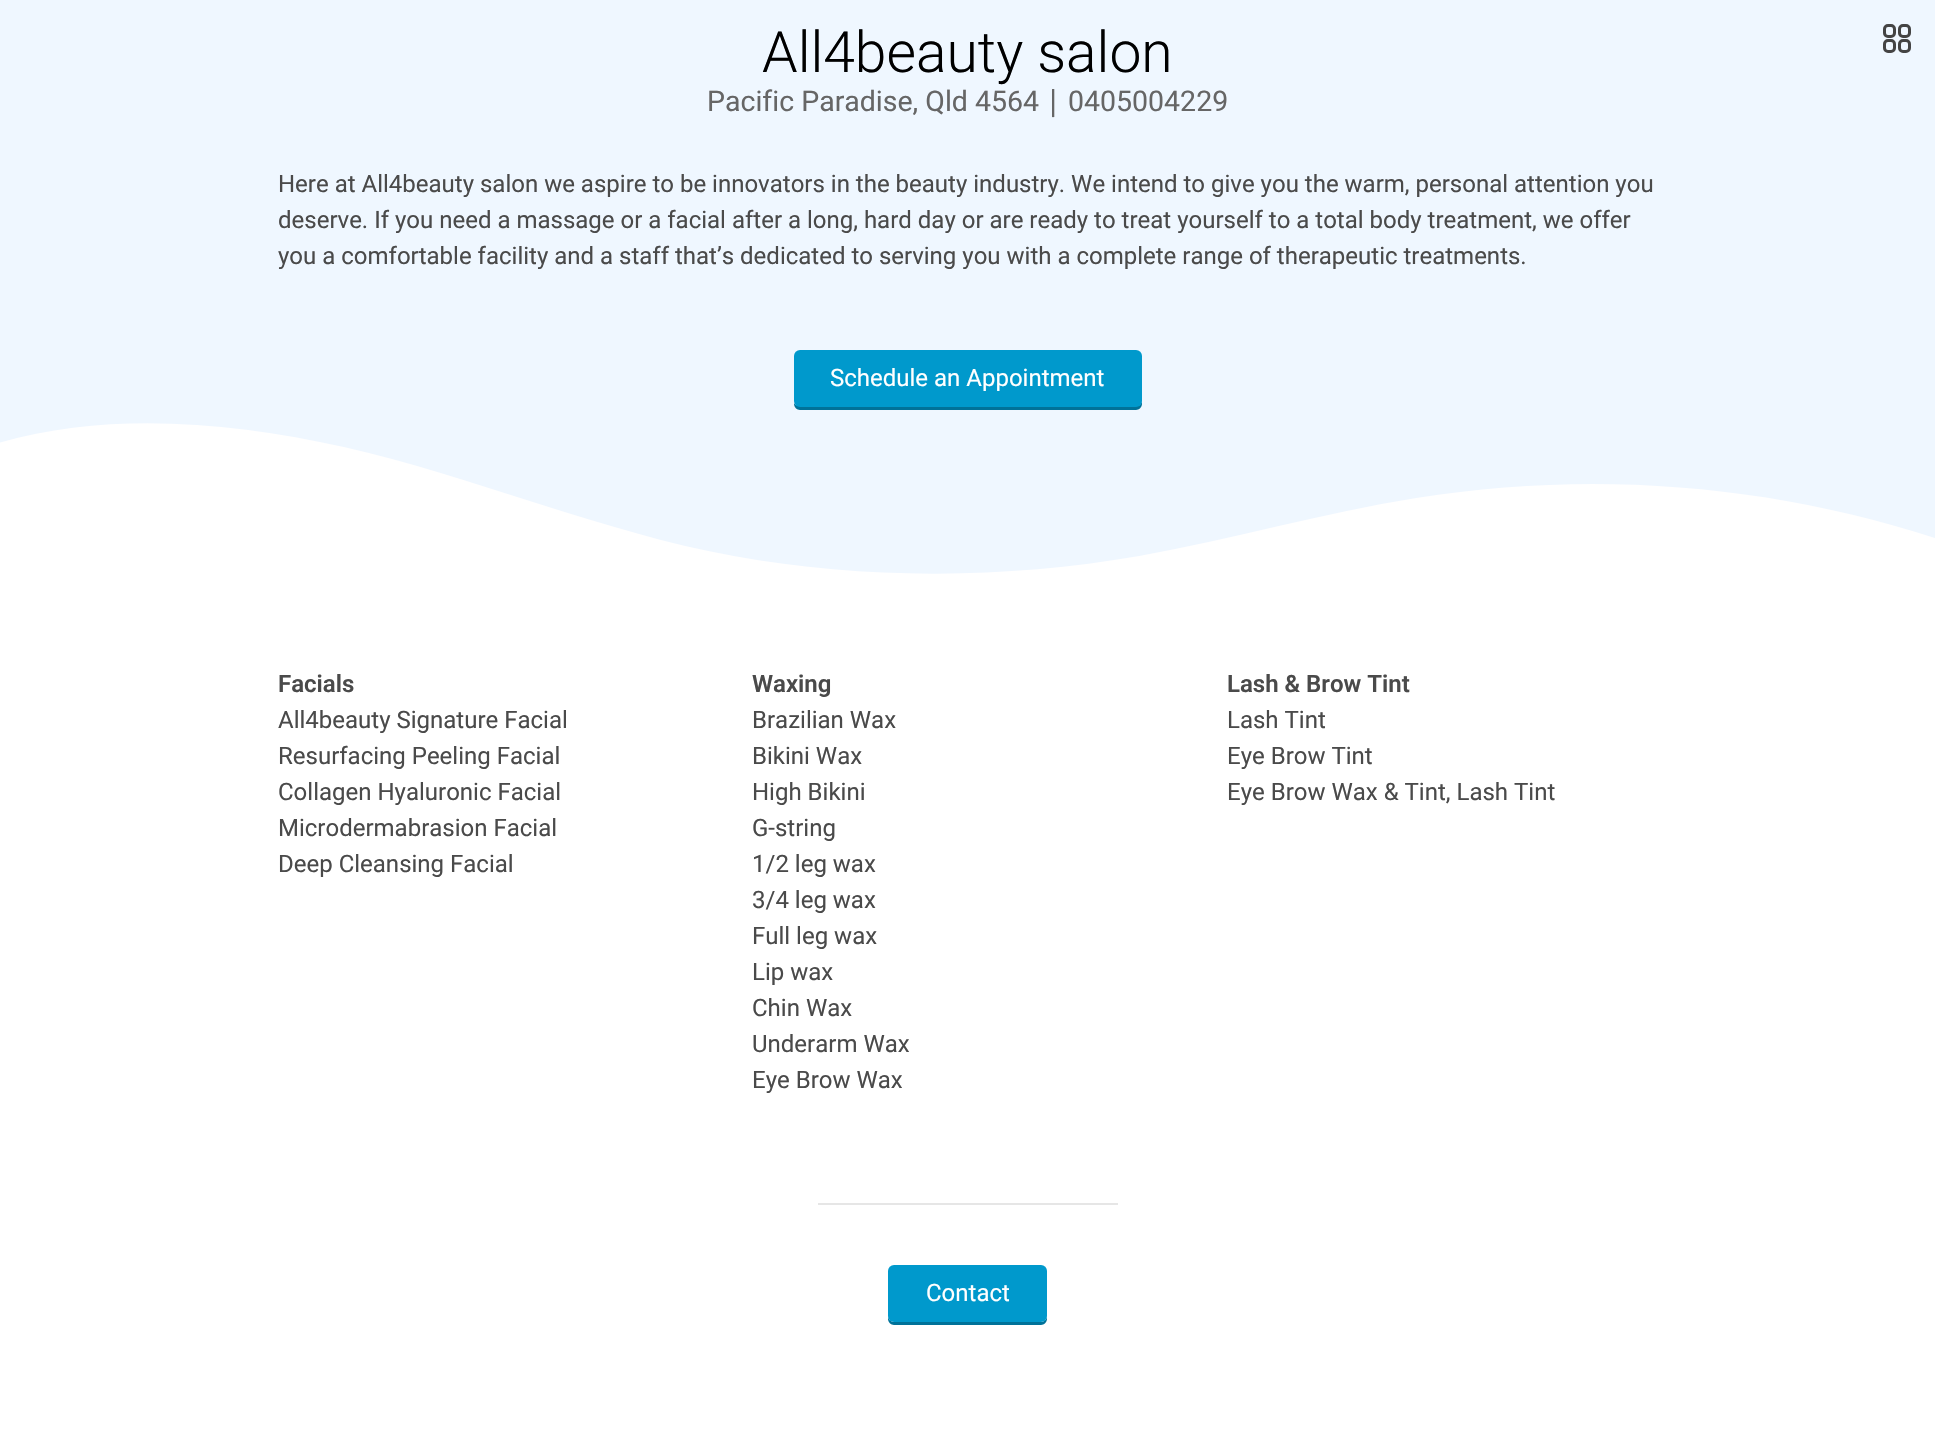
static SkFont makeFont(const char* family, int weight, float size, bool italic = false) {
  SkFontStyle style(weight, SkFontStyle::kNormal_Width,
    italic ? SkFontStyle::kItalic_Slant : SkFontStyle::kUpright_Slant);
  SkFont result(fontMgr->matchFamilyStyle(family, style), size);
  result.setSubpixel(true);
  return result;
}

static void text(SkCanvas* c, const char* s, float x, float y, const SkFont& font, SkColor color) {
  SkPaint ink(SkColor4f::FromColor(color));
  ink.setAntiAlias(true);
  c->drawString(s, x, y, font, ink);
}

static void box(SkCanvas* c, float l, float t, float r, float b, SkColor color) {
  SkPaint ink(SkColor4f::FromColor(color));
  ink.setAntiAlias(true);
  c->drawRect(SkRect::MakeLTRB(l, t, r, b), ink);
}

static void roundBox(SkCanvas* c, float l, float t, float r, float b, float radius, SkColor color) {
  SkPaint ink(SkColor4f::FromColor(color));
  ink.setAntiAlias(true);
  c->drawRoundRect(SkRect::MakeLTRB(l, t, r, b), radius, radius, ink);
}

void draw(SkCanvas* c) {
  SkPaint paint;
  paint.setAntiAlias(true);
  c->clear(0xffffffff);
  box(c, 0, 0, 1935, 410, 0xffeff7ff);
  SkFont face1 = makeFont("Roboto", 300, 57);
  text(c, "All4beauty salon", 762, 72, face1, 0xff000000);
  SkFont face2 = makeFont("Roboto", 400, 28.5f);
  text(c, "Pacific Paradise, Qld 4564", 707, 111, face2, 0xff666666);
  SkFont face3 = makeFont("DejaVu Sans", 400, 28.5f);
  text(c, "∣", 1046, 111, face3, 0xff666666);
  text(c, "0405004229", 1068, 111, face2, 0xff666666);
  SkFont face4 = makeFont("Roboto", 400, 24);
  text(c, "Here at All4beauty salon we aspire to be innovators in the beauty industry. We intend to give you the warm, personal attention you", 278, 192, face4, 0xff4a4a4a);
  text(c, "deserve. If you need a massage or a facial after a long, hard day or are ready to treat yourself to a total body treatment, we offer", 278, 228, face4, 0xff4a4a4a);
  text(c, "you a comfortable facility and a staff that’s dedicated to serving you with a complete range of therapeutic treatments.", 278, 264, face4, 0xff4a4a4a);
  paint.setColor(0xff007299);
  c->drawPath(SkPathBuilder().moveTo(794, 403).lineTo(794, 404).cubicTo(794, 407, 797, 410, 800, 410).lineTo(1136, 410).cubicTo(1139, 410, 1142, 407, 1142, 404).lineTo(1142, 359).lineTo(1142, 357).lineTo(1142, 400).cubicTo(1142, 404, 1139, 406, 1136, 406).lineTo(800, 406).cubicTo(797, 406, 795, 405, 794, 403).close().detach(), paint);
  roundBox(c, 794, 350, 1142, 407, 6, 0xff0099cc);
  text(c, "Schedule an Appointment", 830, 386, face4, 0xffffffff);
  paint.setStyle(SkPaint::kStroke_Style);
  paint.setStrokeWidth(3);
  paint.setColor(0xff444444);
  c->drawRoundRect(SkRect::MakeLTRB(1884.5f, 25.5f, 1894.5f, 36.5f), 3.5f, 3.5f, paint);
  c->drawRoundRect(SkRect::MakeLTRB(1899.5f, 25.5f, 1909.5f, 36.5f), 3.5f, 3.5f, paint);
  c->drawRoundRect(SkRect::MakeLTRB(1884.5f, 40.5f, 1894.5f, 51.5f), 3.5f, 3.5f, paint);
  c->drawRoundRect(SkRect::MakeLTRB(1899.5f, 40.5f, 1909.5f, 51.5f), 3.5f, 3.5f, paint);
  paint.setStyle(SkPaint::kFill_Style);
  paint.setColor(0xffeff7ff);
  c->drawPath(SkPathBuilder().moveTo(344, 447).cubicTo(472, 476, 605, 533, 734, 556).cubicTo(867, 580, 1006, 579, 1139, 556).cubicTo(1232, 539, 1323, 513, 1416, 498).cubicTo(1590, 470, 1770, 484, 1935, 538).lineTo(1935, 410).lineTo(-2, 410).lineTo(-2, 443).cubicTo(108, 411, 231, 422, 344, 447).close().detach(), paint);
  SkFont face5 = makeFont("Roboto", 600, 24);
  text(c, "Facials", 278, 692, face5, 0xff4a4a4a);
  text(c, "All4beauty Signature Facial", 278, 728, face4, 0xff4a4a4a);
  text(c, "Resurfacing Peeling Facial", 278, 764, face4, 0xff4a4a4a);
  text(c, "Collagen Hyaluronic Facial", 278, 800, face4, 0xff4a4a4a);
  text(c, "Microdermabrasion Facial", 278, 836, face4, 0xff4a4a4a);
  text(c, "Deep Cleansing Facial", 278, 872, face4, 0xff4a4a4a);
  text(c, "Waxing", 752, 692, face5, 0xff4a4a4a);
  text(c, "Brazilian Wax", 752, 728, face4, 0xff4a4a4a);
  text(c, "Bikini Wax", 752, 764, face4, 0xff4a4a4a);
  text(c, "High Bikini", 752, 800, face4, 0xff4a4a4a);
  text(c, "G-string", 752, 836, face4, 0xff4a4a4a);
  text(c, "1/2 leg wax", 752, 872, face4, 0xff4a4a4a);
  text(c, "3/4 leg wax", 752, 908, face4, 0xff4a4a4a);
  text(c, "Full leg wax", 752, 944, face4, 0xff4a4a4a);
  text(c, "Lip wax", 752, 980, face4, 0xff4a4a4a);
  text(c, "Chin Wax", 752, 1016, face4, 0xff4a4a4a);
  text(c, "Underarm Wax", 752, 1052, face4, 0xff4a4a4a);
  text(c, "Eye Brow Wax", 752, 1088, face4, 0xff4a4a4a);
  text(c, "Lash & Brow Tint", 1227, 692, face5, 0xff4a4a4a);
  text(c, "Lash Tint", 1227, 728, face4, 0xff4a4a4a);
  text(c, "Eye Brow Tint", 1227, 764, face4, 0xff4a4a4a);
  text(c, "Eye Brow Wax & Tint, Lash Tint", 1227, 800, face4, 0xff4a4a4a);
  box(c, 818, 1203, 1118, 1205, 0xffe6e6e6);
  paint.setColor(0xff007299);
  c->drawPath(SkPathBuilder().moveTo(888, 1316).lineTo(888, 1319).cubicTo(888, 1322, 891, 1325, 894, 1325).lineTo(1041, 1325).cubicTo(1044, 1325, 1047, 1322, 1047, 1319).lineTo(1047, 1316).cubicTo(1047, 1319, 1044, 1322, 1041, 1322).lineTo(894, 1322).cubicTo(891, 1322, 888, 1319, 888, 1316).close().detach(), paint);
  roundBox(c, 888, 1265, 1047, 1322, 6, 0xff0099cc);
  text(c, "Contact", 926, 1301, face4, 0xffffffff);
}
